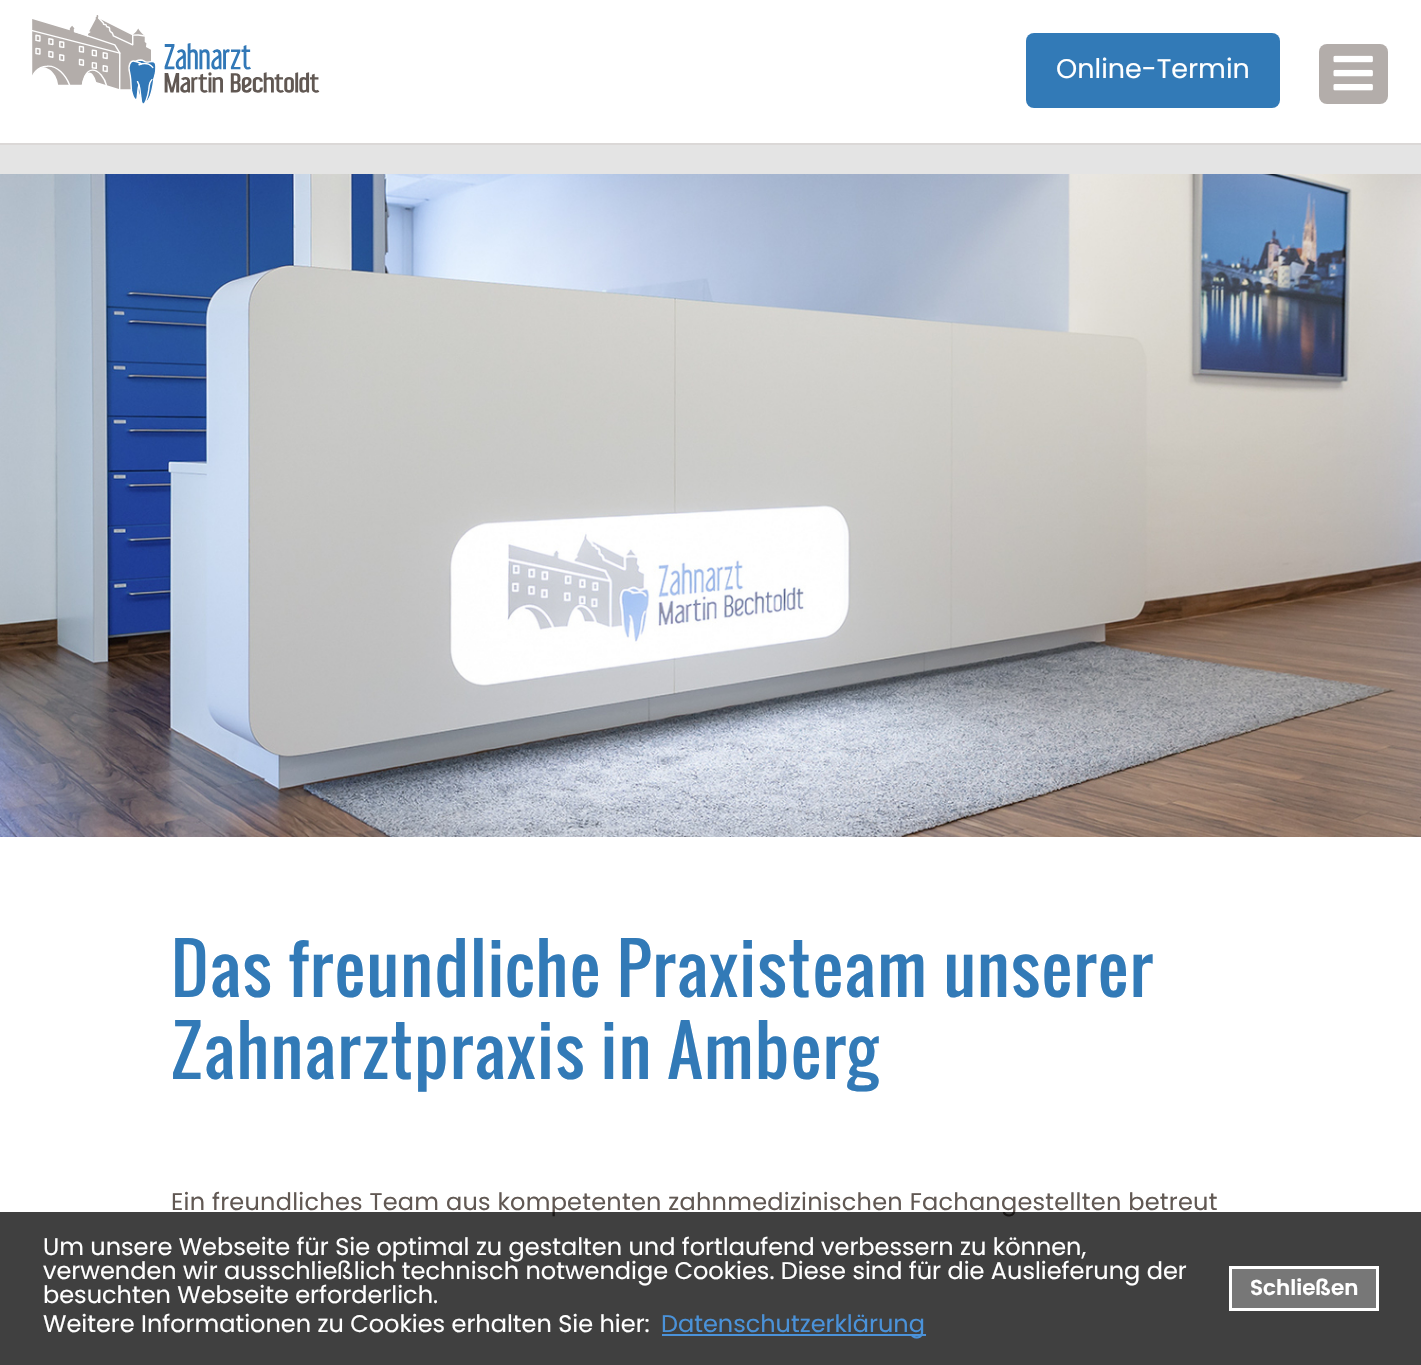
static SkFont makeFont(const char* family, int weight, float size, bool italic = false) {
  SkFontStyle style(weight, SkFontStyle::kNormal_Width,
    italic ? SkFontStyle::kItalic_Slant : SkFontStyle::kUpright_Slant);
  SkFont result(fontMgr->matchFamilyStyle(family, style), size);
  result.setSubpixel(true);
  return result;
}

static void text(SkCanvas* c, const char* s, float x, float y, const SkFont& font, SkColor color) {
  SkPaint ink(SkColor4f::FromColor(color));
  ink.setAntiAlias(true);
  c->drawString(s, x, y, font, ink);
}

static void spacedText(SkCanvas* c, const char* s, float x, float y, const SkFont& font, const SkPaint& ink, float letter, float word) {
  std::vector<SkGlyphID> glyphs(font.countText(s, strlen(s), SkTextEncoding::kUTF8));
  std::vector<float> xs(glyphs.size());
  font.textToGlyphs(s, strlen(s), SkTextEncoding::kUTF8, glyphs);
  font.getXPos(glyphs, xs, x);
  float extra = 0;
  for (size_t i = 0; i < glyphs.size(); i++) {
    xs[i] += extra;
    extra += letter + word * (glyphs[i] == font.unicharToGlyph(' '));
  }
  c->drawTextBlob(SkTextBlob::MakeFromPosHGlyphs(glyphs, xs, y, font), 0, 0, ink);
}

static void box(SkCanvas* c, float l, float t, float r, float b, SkColor color) {
  SkPaint ink(SkColor4f::FromColor(color));
  ink.setAntiAlias(true);
  c->drawRect(SkRect::MakeLTRB(l, t, r, b), ink);
}

static void roundBox(SkCanvas* c, float l, float t, float r, float b, float radius, SkColor color) {
  SkPaint ink(SkColor4f::FromColor(color));
  ink.setAntiAlias(true);
  c->drawRoundRect(SkRect::MakeLTRB(l, t, r, b), radius, radius, ink);
}

static void picture(SkCanvas* c, const char* path, float l, float t, float r, float b) {
  auto image = SkImages::DeferredFromEncodedData(SkData::MakeFromFileName(path));
  c->drawImageRect(image, SkRect::MakeLTRB(l, t, r, b), SkSamplingOptions());
}

void draw(SkCanvas* c) {
  SkPaint paint;
  paint.setAntiAlias(true);
  c->clear(0xffffffff);
  box(c, 0, 143, 1421, 145, 0xffdbd8d7);
  picture(c, "img_01.png", 32, 15, 320, 104);
  roundBox(c, 1319, 44, 1388, 104, 8, 0xffb3adaa);
  picture(c, "img_02.png", 1333, 55, 1373, 91);
  roundBox(c, 1026, 33, 1280, 108, 8, 0xff327ab7);
  SkFont face1 = makeFont("Poppins", 400, 27);
  text(c, "Online-Termin", 1056, 78, face1, 0xffffffff);
  box(c, 0, 145, 1421, 174, 0xffe4e4e4);
  picture(c, "img_03.png", 0, 174, 1421, 837);
  SkFont face2 = makeFont("Oswald", 400, 67.5f);
  paint.setColor(0xff327ab7);
  spacedText(c, "Das freundliche Praxisteam unserer", 171, 997, face2, paint, 1.35f, 0);
  spacedText(c, "Zahnarztpraxis in Amberg", 171, 1079, face2, paint, 1.35f, 0);
  SkFont face3 = makeFont("Poppins", 400, 24);
  paint.setColor(0xff615853);
  spacedText(c, "Ein freundliches Team aus kompetenten zahnmedizinischen Fachangestellten betreut", 171, 1210, face3, paint, 0.25f, 0);
  box(c, 0, 1212, 1421, 1365, 0xbf000000);
  text(c, "Um unsere Webseite für Sie optimal zu gestalten und fortlaufend verbessern zu können,", 43, 1255, face3, 0xffffffff);
  text(c, "verwenden wir ausschließlich technisch notwendige Cookies. Diese sind für die Auslieferung der", 43, 1279, face3, 0xffffffff);
  text(c, "besuchten Webseite erforderlich.", 43, 1303, face3, 0xffffffff);
  text(c, "Weitere Informationen zu Cookies erhalten Sie hier:", 43, 1332, face3, 0xffffffff);
  box(c, 662, 1334, 926, 1336, 0xcc4da6ff);
  text(c, "Datenschutzerklärung", 661, 1332, face3, 0xff4a92d9);
  paint.setColor(0xff777777);
  c->drawRect(SkRect::MakeLTRB(1230.5f, 1267.5f, 1377.5f, 1309.5f), paint);
  paint.setStyle(SkPaint::kStroke_Style);
  paint.setStrokeWidth(3);
  paint.setColor(0xffffffff);
  c->drawRect(SkRect::MakeLTRB(1230.5f, 1267.5f, 1377.5f, 1309.5f), paint);
  SkFont face4 = makeFont("Poppins", 600, 21.5f);
  text(c, "Schließen", 1250, 1295, face4, 0xffffffff);
}
